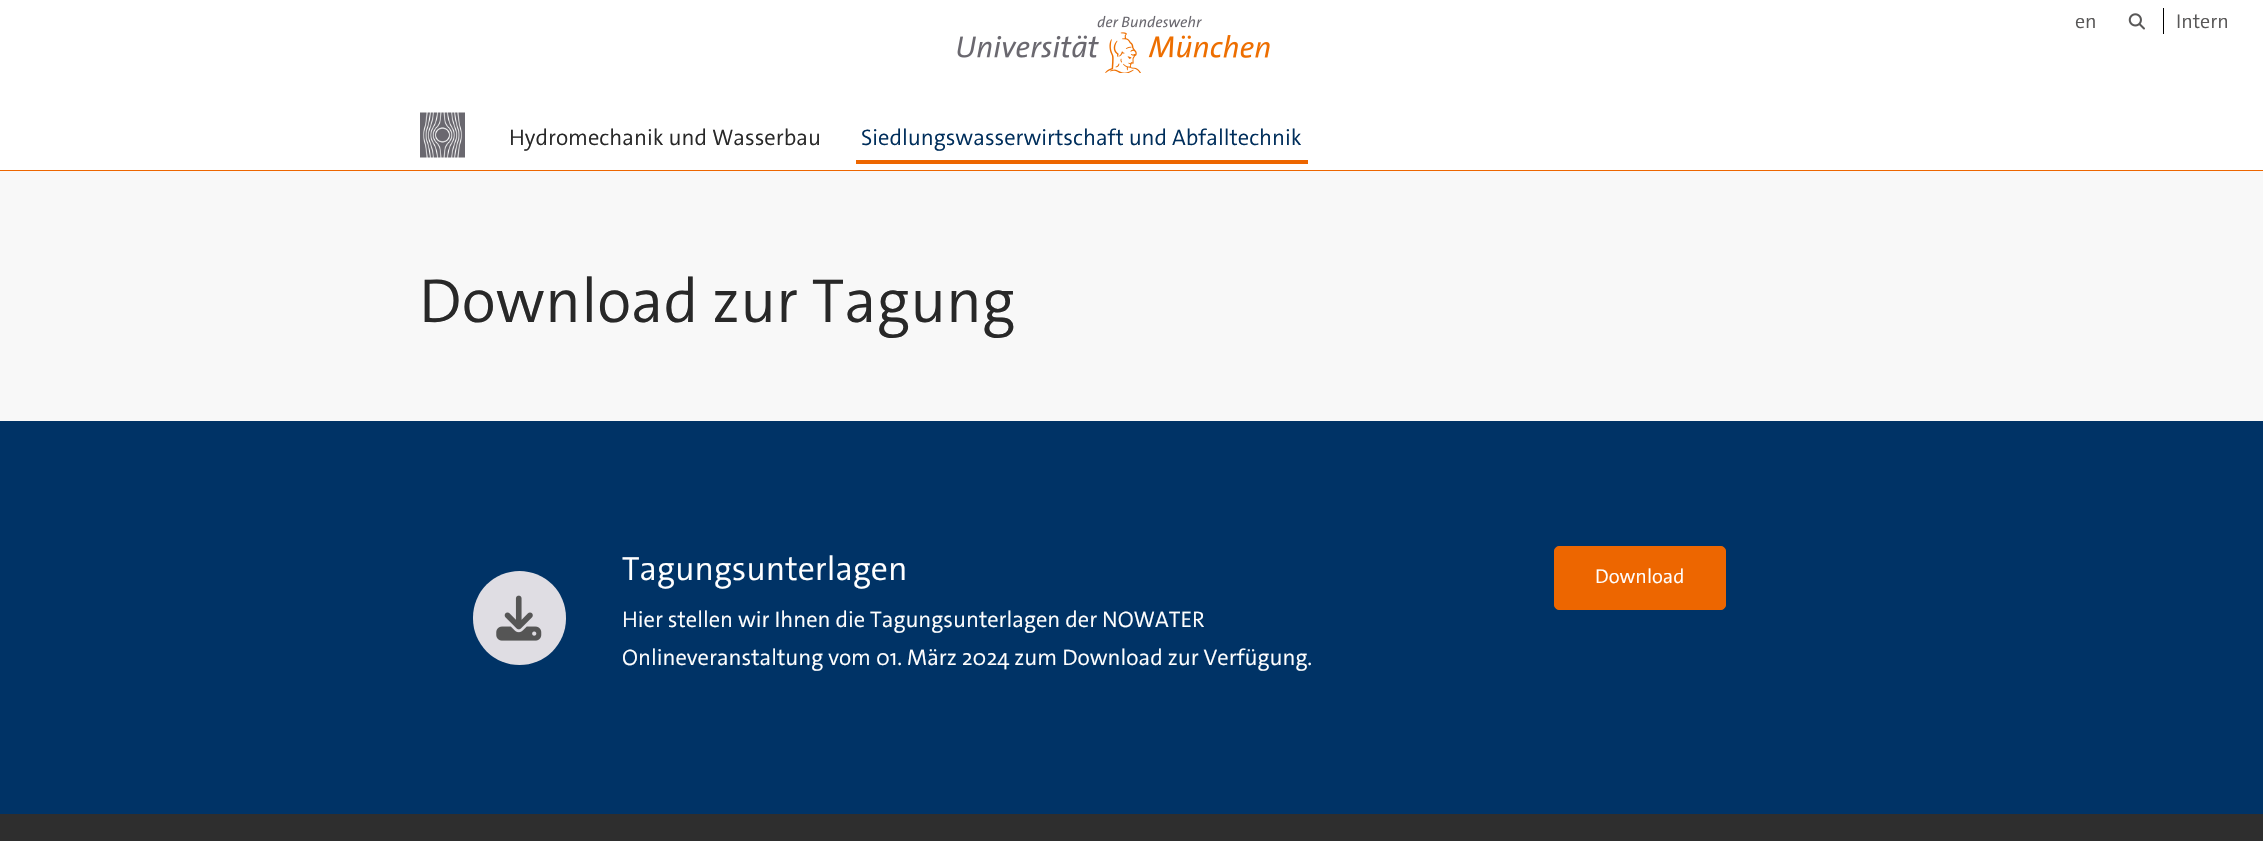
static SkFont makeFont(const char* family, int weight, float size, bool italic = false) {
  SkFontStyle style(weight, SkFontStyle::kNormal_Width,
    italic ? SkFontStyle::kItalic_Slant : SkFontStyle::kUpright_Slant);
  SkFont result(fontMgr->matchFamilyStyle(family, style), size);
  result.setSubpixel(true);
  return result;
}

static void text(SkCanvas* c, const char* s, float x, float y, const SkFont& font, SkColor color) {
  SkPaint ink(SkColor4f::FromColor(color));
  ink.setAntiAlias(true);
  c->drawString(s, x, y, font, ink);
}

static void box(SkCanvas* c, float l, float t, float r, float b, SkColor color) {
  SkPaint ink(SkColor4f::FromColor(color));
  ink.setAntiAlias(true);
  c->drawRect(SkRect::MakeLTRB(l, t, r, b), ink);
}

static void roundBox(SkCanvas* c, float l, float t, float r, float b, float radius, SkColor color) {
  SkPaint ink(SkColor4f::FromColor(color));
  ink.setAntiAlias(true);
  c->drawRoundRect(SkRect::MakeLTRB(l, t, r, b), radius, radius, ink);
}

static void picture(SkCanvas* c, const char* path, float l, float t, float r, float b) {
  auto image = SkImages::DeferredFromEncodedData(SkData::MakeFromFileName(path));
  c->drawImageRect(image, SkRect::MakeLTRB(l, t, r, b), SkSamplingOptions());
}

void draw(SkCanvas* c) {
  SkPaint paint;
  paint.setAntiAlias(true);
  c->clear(0xffffffff);
  box(c, 0, 170, 2263, 171, 0xffed6600);
  picture(c, "img_01.png", 1105, 32, 1141, 73);
  picture(c, "img_02.png", 957, 15, 1270, 58);
  SkFont face1 = makeFont("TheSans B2", 300, 20);
  text(c, "en", 2075, 28, face1, 0xff595858);
  picture(c, "img_03.png", 2128, 13, 2145, 30);
  text(c, "Intern", 2176, 28, face1, 0xff595858);
  box(c, 2163, 8, 2164, 34, 0xff000000);
  picture(c, "img_04.png", 420, 112, 465, 158);
  SkFont face2 = makeFont("TheSans B2", 300, 22.5f);
  text(c, "Hydromechanik und Wasserbau", 509, 145, face2, 0xff282828);
  box(c, 856, 160, 1308, 164, 0xffed6600);
  text(c, "Siedlungswasserwirtschaft und Abfalltechnik", 861, 145, face2, 0xff002e5b);
  box(c, 0, 171, 2263, 421, 0xfff8f8f8);
  SkFont face3 = makeFont("TheSans B2", 300, 62.5f);
  text(c, "Download zur Tagung", 419, 322, face3, 0xff282828);
  box(c, 0, 421, 2263, 814, 0xff003366);
  roundBox(c, 473, 571, 566, 665, 46.5f, 0xffdfdde3);
  picture(c, "img_05.png", 496, 595, 542, 641);
  SkFont face4 = makeFont("TheSans B2", 300, 33.75f);
  text(c, "Tagungsunterlagen", 622, 580, face4, 0xffffffff);
  text(c, "Hier stellen wir Ihnen die Tagungsunterlagen der NOWATER", 622, 627, face2, 0xffffffff);
  text(c, "Onlineveranstaltung vom 01. März 2024 zum Download zur Verfügung.", 622, 665, face2, 0xffffffff);
  paint.setColor(0xffed6600);
  c->drawRoundRect(SkRect::MakeLTRB(1554.5f, 546.5f, 1725.5f, 609.5f), 4.5f, 4.5f, paint);
  paint.setStyle(SkPaint::kStroke_Style);
  paint.setStrokeWidth(1);
  c->drawRoundRect(SkRect::MakeLTRB(1554.5f, 546.5f, 1725.5f, 609.5f), 4.5f, 4.5f, paint);
  text(c, "Download", 1595, 583, face1, 0xffffffff);
  box(c, 0, 814, 2263, 841, 0xff2e2e2e);
}
